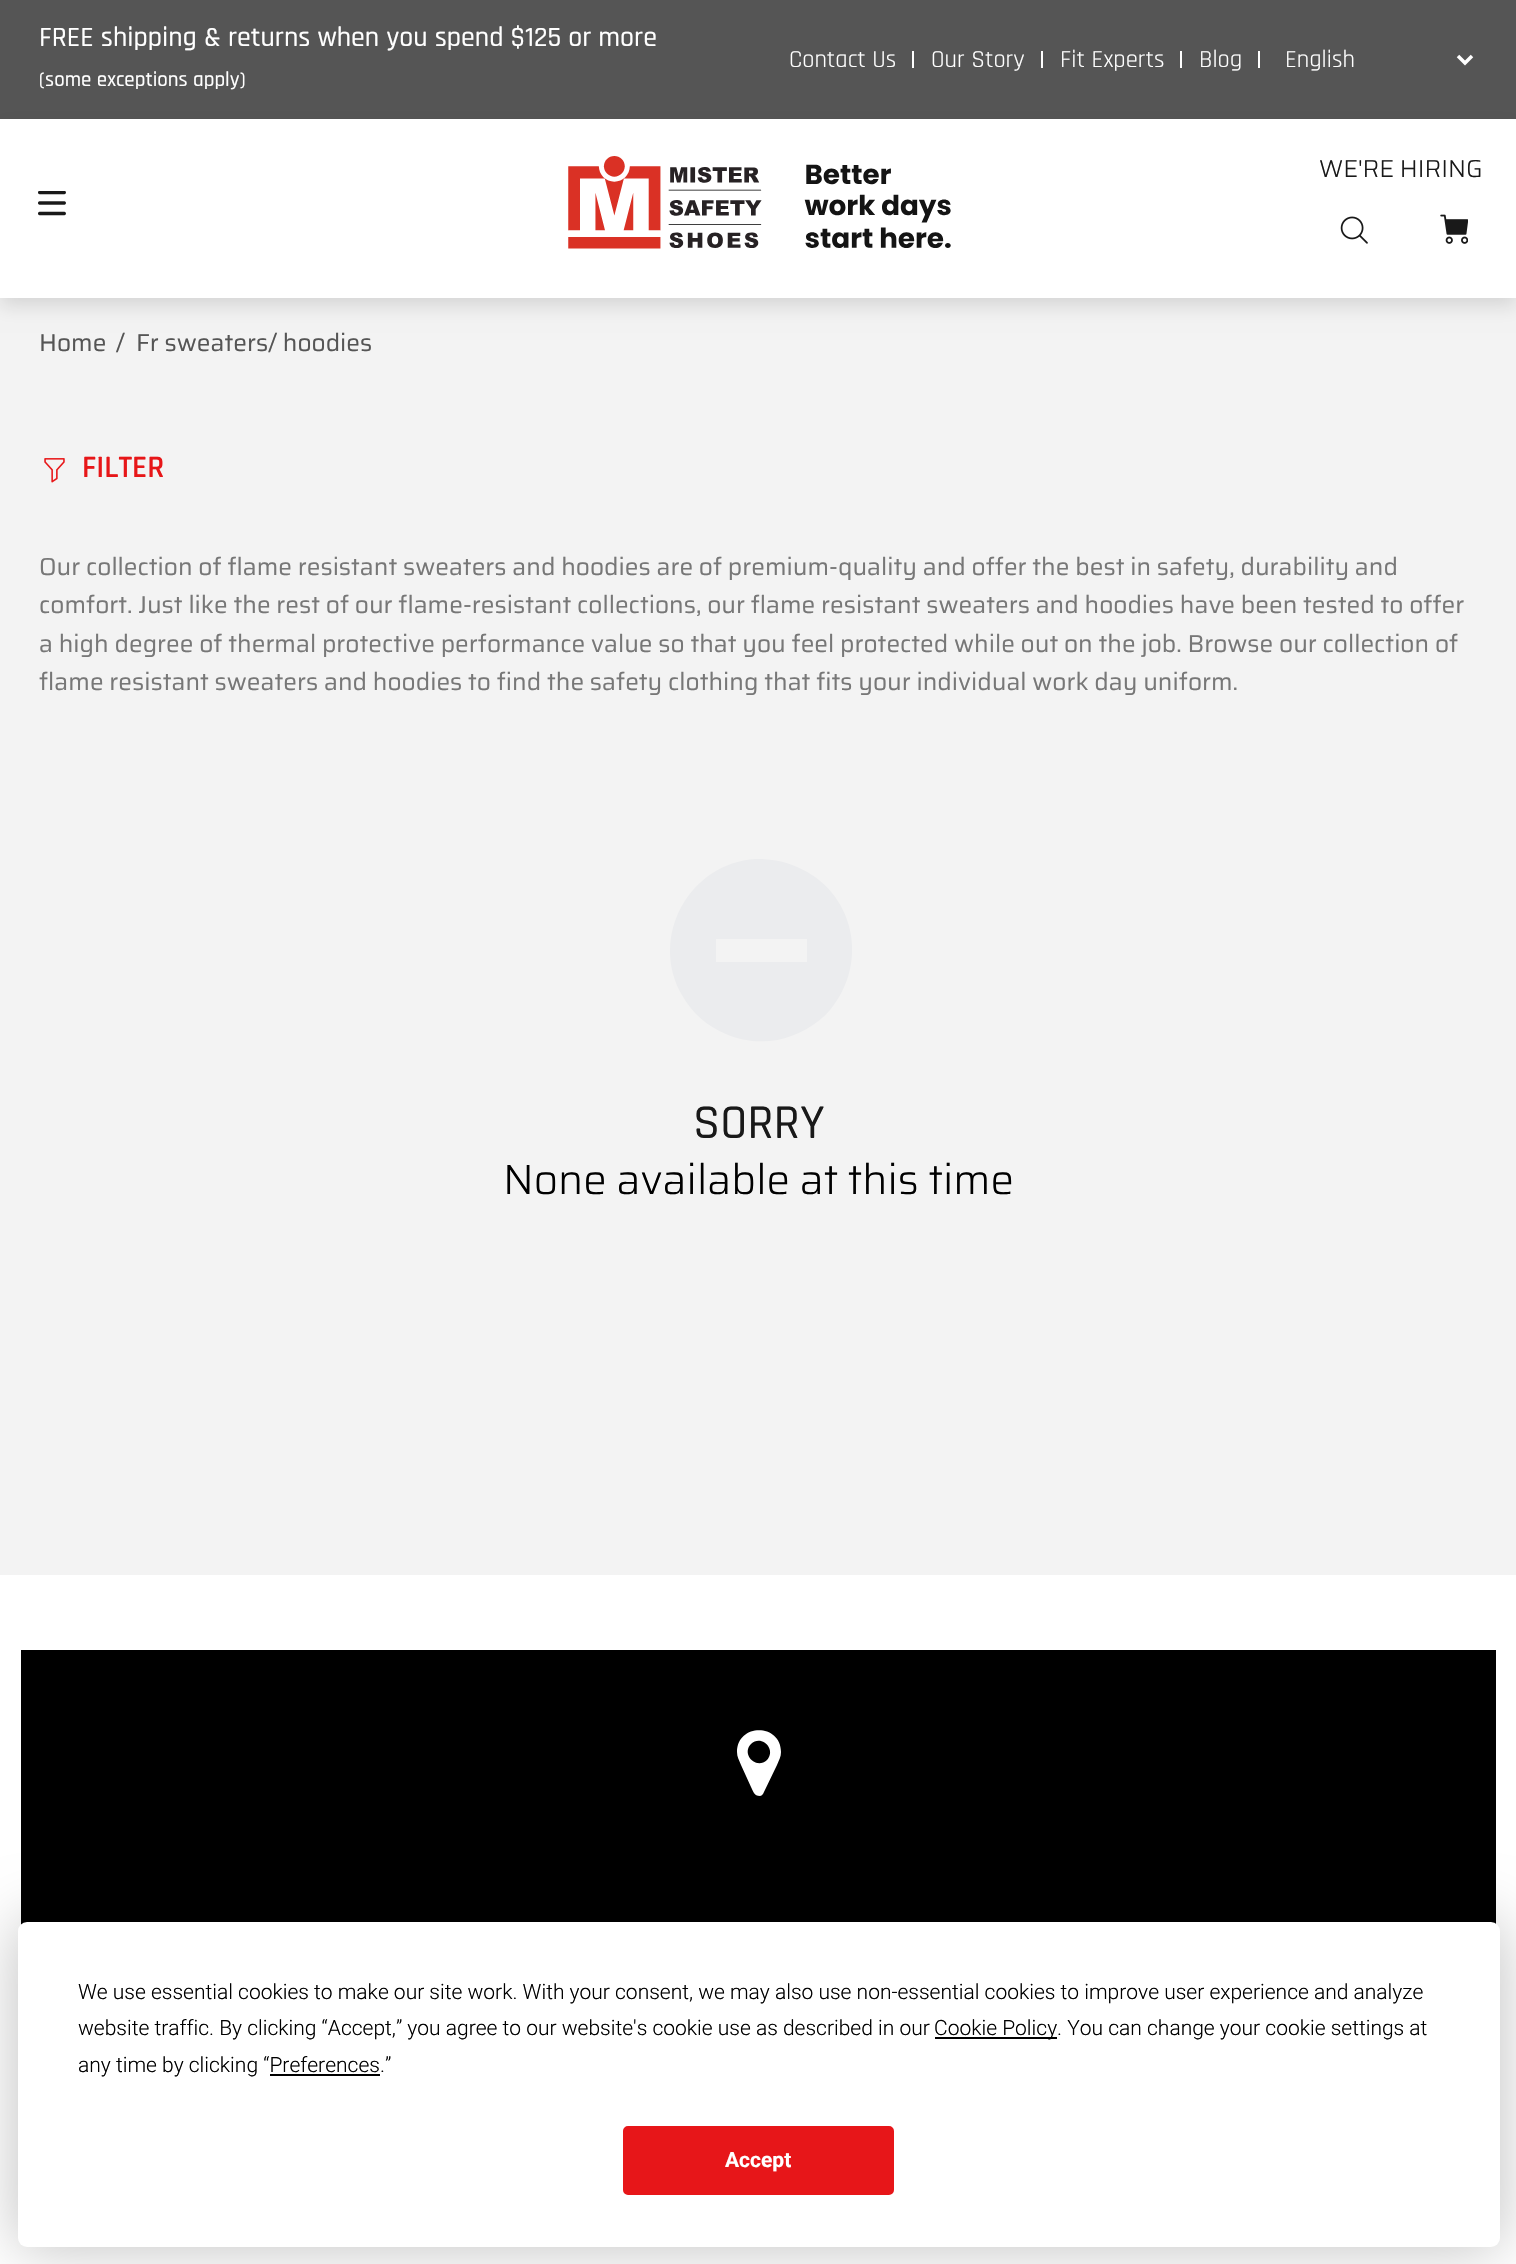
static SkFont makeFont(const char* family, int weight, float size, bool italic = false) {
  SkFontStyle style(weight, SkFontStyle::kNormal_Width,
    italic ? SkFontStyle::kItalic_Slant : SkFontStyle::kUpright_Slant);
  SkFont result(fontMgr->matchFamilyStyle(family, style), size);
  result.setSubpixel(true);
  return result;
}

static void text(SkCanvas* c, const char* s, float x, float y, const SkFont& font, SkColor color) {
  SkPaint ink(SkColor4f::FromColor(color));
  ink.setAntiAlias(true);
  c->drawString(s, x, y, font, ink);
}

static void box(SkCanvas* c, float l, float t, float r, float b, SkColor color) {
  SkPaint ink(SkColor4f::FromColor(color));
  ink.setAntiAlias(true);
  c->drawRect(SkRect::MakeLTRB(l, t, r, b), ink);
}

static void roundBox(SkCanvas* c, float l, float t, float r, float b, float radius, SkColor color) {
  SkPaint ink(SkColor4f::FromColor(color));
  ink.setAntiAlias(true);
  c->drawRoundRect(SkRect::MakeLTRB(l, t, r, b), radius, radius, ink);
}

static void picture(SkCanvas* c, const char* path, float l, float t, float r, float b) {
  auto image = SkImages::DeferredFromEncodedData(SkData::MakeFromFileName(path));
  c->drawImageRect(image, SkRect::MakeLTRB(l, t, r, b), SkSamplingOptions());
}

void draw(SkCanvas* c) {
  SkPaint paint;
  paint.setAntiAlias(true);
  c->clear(0xffffffff);
  box(c, 0, 0, 1516, 119, 0xff555555);
  SkFont face1 = makeFont("Rajdhani", 500, 28);
  text(c, "FREE shipping & returns when you spend $125 or more", 39, 46, face1, 0xffffffff);
  SkFont face2 = makeFont("Rajdhani", 500, 21);
  text(c, "(some exceptions apply)", 39, 86, face2, 0xffffffff);
  SkFont face3 = makeFont("Rajdhani", 400, 24.5f);
  text(c, "Contact Us", 789, 67, face3, 0xffffffff);
  box(c, 912, 51, 914, 68, 0xffffffff);
  text(c, "Our Story", 931, 67, face3, 0xffffffff);
  box(c, 1041, 51, 1043, 68, 0xffffffff);
  text(c, "Fit Experts", 1060, 67, face3, 0xffffffff);
  box(c, 1180, 51, 1182, 68, 0xffffffff);
  text(c, "Blog", 1199, 67, face3, 0xffffffff);
  box(c, 1258, 51, 1260, 68, 0xffffffff);
  paint.setStyle(SkPaint::kStroke_Style);
  paint.setStrokeWidth(3.5f);
  paint.setColor(0xffffffff);
  c->drawPath(SkPathBuilder().moveTo(1458, 56).lineTo(1465, 63).lineTo(1472, 56).detach(), paint);
  text(c, "English", 1285, 67, face3, 0xffffffff);
  box(c, 0, 298, 1516, 1575, 0xfff3f3f3);
  c->save();
  c->clipPath(SkPathBuilder(SkPathFillType::kEvenOdd).moveTo(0, 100).lineTo(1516, 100).lineTo(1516, 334).lineTo(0, 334).close().moveTo(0, 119).lineTo(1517, 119).lineTo(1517, 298).lineTo(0, 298).close().detach(), true);
  paint.setStyle(SkPaint::kFill_Style);
  paint.setColor(0x1f000000);
  paint.setMaskFilter(SkMaskFilter::MakeBlur(kNormal_SkBlurStyle, 9));
  c->drawRect(SkRect::MakeLTRB(0, 128, 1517, 306), paint);
  paint.setMaskFilter(nullptr);
  c->restore();
  picture(c, "img_01.png", 568, 156, 951, 249);
  SkFont face4 = makeFont("Saira", 300, 24.5f);
  text(c, "WE'RE HIRING", 1319, 177, face4, 0xff191919);
  picture(c, "img_02.png", 1340, 216, 1368, 244);
  picture(c, "img_03.png", 1440, 214, 1468, 244);
  picture(c, "img_04.png", 38, 191, 66, 216);
  SkFont face5 = makeFont("Saira", 400, 24.5f);
  text(c, "Home", 39, 351, face5, 0xff555555);
  text(c, "/", 116, 351, face5, 0xff555555);
  text(c, "Fr sweaters/ hoodies", 136, 351, face5, 0xff555555);
  picture(c, "img_05.png", 44, 458, 65, 483);
  SkFont face6 = makeFont("Rajdhani", 600, 31.5f);
  text(c, "FILTER", 82, 477, face6, 0xffe71618);
  text(c, "Our collection of flame resistant sweaters and hoodies are of premium-quality and offer the best in safety, durability and", 39, 575, face5, 0xff777777);
  text(c, "comfort. Just like the rest of our flame-resistant collections, our flame resistant sweaters and hoodies have been tested to offer", 39, 613, face5, 0xff777777);
  text(c, "a high degree of thermal protective performance value so that you feel protected while out on the job. Browse our collection of", 39, 652, face5, 0xff777777);
  text(c, "flame resistant sweaters and hoodies to find the safety clothing that fits your individual work day uniform.", 39, 690, face5, 0xff777777);
  paint.setColor(0xffebecee);
  c->drawPath(SkPathBuilder().moveTo(797, 867).cubicTo(854, 891, 870, 962, 830, 1010).cubicTo(817, 1025, 797, 1036, 777, 1040).cubicTo(760, 1043, 742, 1041, 726, 1034).cubicTo(707, 1026, 692, 1013, 682, 995).cubicTo(649, 937, 689, 863, 756, 859).cubicTo(770, 859, 784, 861, 797, 867).close().moveTo(807, 939).lineTo(716, 939).lineTo(716, 962).lineTo(807, 962).close().detach(), paint);
  SkFont face7 = makeFont("Rajdhani", 500, 49);
  text(c, "SORRY", 693, 1138, face7, 0xff191919);
  SkFont face8 = makeFont("Saira", 300, 42);
  text(c, "None available at this time", 503, 1194, face8, 0xff000000);
  box(c, 21, 1650, 1496, 1925, 0xff000000);
  paint.setColor(0xffffffff);
  c->drawPath(SkPathBuilder().moveTo(767, 1760).cubicTo(777, 1749, 761, 1734, 751, 1744).cubicTo(741, 1754, 756, 1770, 767, 1760).close().moveTo(781, 1752).cubicTo(781, 1757, 779, 1760, 777, 1765).lineTo(763, 1794).cubicTo(762, 1795, 761, 1796, 760, 1796).cubicTo(754, 1796, 753, 1791, 751, 1787).lineTo(741, 1765).cubicTo(739, 1760, 737, 1757, 737, 1752).cubicTo(737, 1723, 781, 1723, 781, 1752).close().detach(), paint);
  paint.setColor(0x40000000);
  paint.setMaskFilter(SkMaskFilter::MakeBlur(kNormal_SkBlurStyle, 30.5f));
  c->drawRoundRect(SkRect::MakeLTRB(18, 1922, 1500, 2247), 9, 9, paint);
  paint.setMaskFilter(nullptr);
  roundBox(c, 18, 1922, 1500, 2247, 9, 0xffffffff);
  SkFont face9 = makeFont("Roboto", 300, 21);
  text(c, "We use essential cookies to make our site work. With your consent, we may also use non-essential cookies to improve user experience and analyze", 78, 1999, face9, 0xff000000);
  text(c, "website traffic. By clicking “Accept,” you agree to our website's cookie use as described in our", 78, 2035, face9, 0xff000000);
  box(c, 935, 2037, 1057, 2039, 0xff000000);
  text(c, "Cookie Policy. You can change your cookie settings at", 934, 2035, face9, 0xff000000);
  text(c, "any time by clicking “Preferences.”", 78, 2072, face9, 0xff000000);
  box(c, 270, 2074, 380, 2076, 0xff000000);
  paint.setColor(0xffe71619);
  c->drawRoundRect(SkRect::MakeLTRB(624, 2127, 893, 2194), 4, 4, paint);
  paint.setStyle(SkPaint::kStroke_Style);
  paint.setStrokeWidth(2);
  c->drawRoundRect(SkRect::MakeLTRB(624, 2127, 893, 2194), 4, 4, paint);
  SkFont face10 = makeFont("Roboto", 700, 21);
  text(c, "Accept", 725, 2167, face10, 0xffffffff);
}
